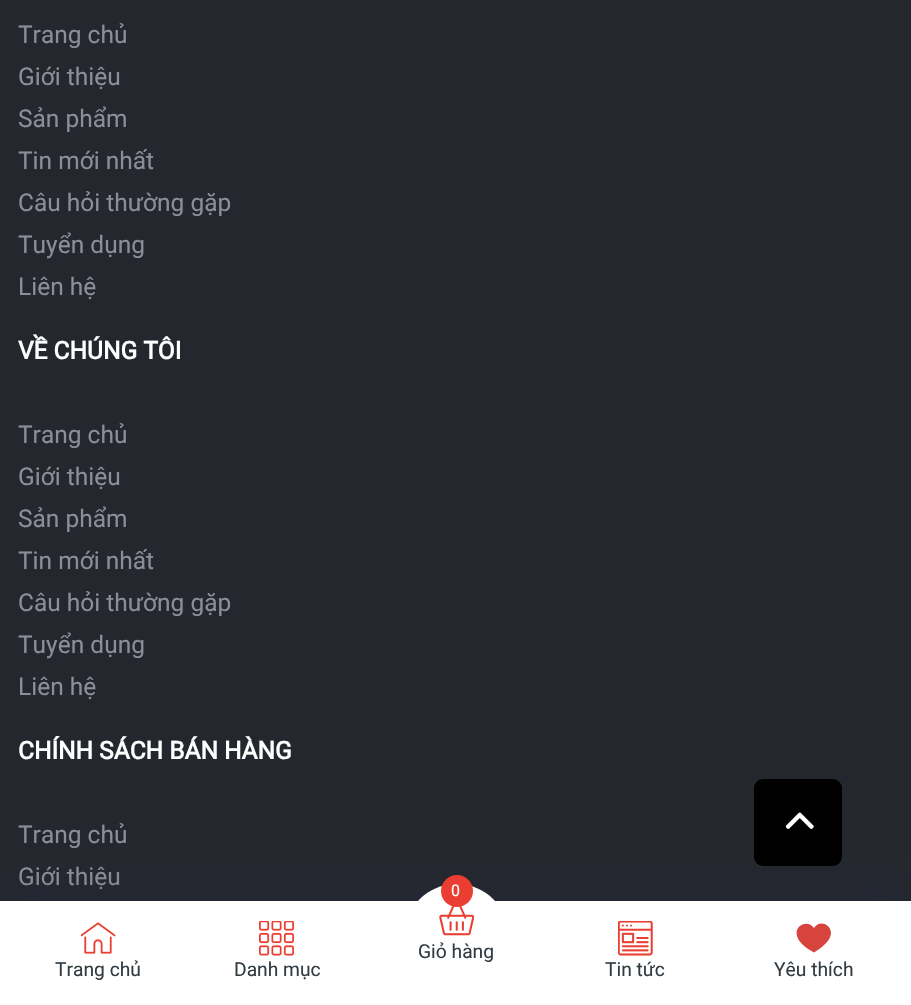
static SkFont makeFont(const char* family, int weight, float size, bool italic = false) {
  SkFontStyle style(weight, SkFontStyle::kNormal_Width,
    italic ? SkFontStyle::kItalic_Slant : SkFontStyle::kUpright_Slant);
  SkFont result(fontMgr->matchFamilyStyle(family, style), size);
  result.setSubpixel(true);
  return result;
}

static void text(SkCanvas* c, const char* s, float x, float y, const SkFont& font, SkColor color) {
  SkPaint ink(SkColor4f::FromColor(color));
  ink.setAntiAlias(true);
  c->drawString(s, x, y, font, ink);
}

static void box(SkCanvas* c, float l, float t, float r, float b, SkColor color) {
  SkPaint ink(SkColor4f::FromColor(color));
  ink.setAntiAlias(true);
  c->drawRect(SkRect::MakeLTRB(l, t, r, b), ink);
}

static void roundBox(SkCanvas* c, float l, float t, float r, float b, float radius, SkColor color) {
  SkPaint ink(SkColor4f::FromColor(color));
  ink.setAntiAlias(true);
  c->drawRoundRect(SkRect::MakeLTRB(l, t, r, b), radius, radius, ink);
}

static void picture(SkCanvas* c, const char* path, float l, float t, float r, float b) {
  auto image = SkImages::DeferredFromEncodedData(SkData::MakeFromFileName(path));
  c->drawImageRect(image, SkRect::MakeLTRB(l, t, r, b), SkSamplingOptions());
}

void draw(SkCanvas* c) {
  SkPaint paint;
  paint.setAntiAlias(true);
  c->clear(0xff24272e);
  SkFont face1 = makeFont("Roboto", 400, 24.5f);
  text(c, "Trang chủ", 18, 43, face1, 0xff8b8e96);
  text(c, "Giới thiệu", 18, 85, face1, 0xff8b8e96);
  text(c, "Sản phẩm", 18, 127, face1, 0xff8b8e96);
  text(c, "Tin mới nhất", 18, 169, face1, 0xff8b8e96);
  text(c, "Câu hỏi thường gặp", 18, 211, face1, 0xff8b8e96);
  text(c, "Tuyển dụng", 18, 253, face1, 0xff8b8e96);
  text(c, "Liên hệ", 18, 295, face1, 0xff8b8e96);
  SkFont face2 = makeFont("Roboto", 700, 24.5f);
  text(c, "VỀ CHÚNG TÔI", 18, 359, face2, 0xffffffff);
  text(c, "Trang chủ", 18, 443, face1, 0xff8b8e96);
  text(c, "Giới thiệu", 18, 485, face1, 0xff8b8e96);
  text(c, "Sản phẩm", 18, 527, face1, 0xff8b8e96);
  text(c, "Tin mới nhất", 18, 569, face1, 0xff8b8e96);
  text(c, "Câu hỏi thường gặp", 18, 611, face1, 0xff8b8e96);
  text(c, "Tuyển dụng", 18, 653, face1, 0xff8b8e96);
  text(c, "Liên hệ", 18, 695, face1, 0xff8b8e96);
  text(c, "CHÍNH SÁCH BÁN HÀNG", 18, 759, face2, 0xffffffff);
  text(c, "Trang chủ", 18, 843, face1, 0xff8b8e96);
  text(c, "Giới thiệu", 18, 885, face1, 0xff8b8e96);
  paint.setColor(0x801f2643);
  paint.setMaskFilter(SkMaskFilter::MakeBlur(kNormal_SkBlurStyle, 22));
  c->drawRect(SkRect::MakeLTRB(0, 907, 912, 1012), paint);
  paint.setMaskFilter(nullptr);
  roundBox(c, 754, 779, 842, 866, 9, 0xff000000);
  picture(c, "img_01.png", 786, 812, 814, 829);
  box(c, 0, 901, 911, 1005, 0xffffffff);
  paint.setColor(0xffffffff);
  c->drawCircle(456.5f, 936.5f, 52.5f, paint);
  picture(c, "img_02.png", 439, 906, 474, 936);
  paint.setColor(0xffeb3e32);
  c->drawCircle(457, 891, 16, paint);
  SkFont face3 = makeFont("Roboto", 400, 16);
  text(c, "0", 451, 896, face3, 0xffffffff);
  SkFont face4 = makeFont("Roboto", 400, 19.25f);
  text(c, "Giỏ hàng", 418, 958, face4, 0xff323c42);
  picture(c, "img_03.png", 81, 922, 116, 954);
  text(c, "Trang chủ", 55, 976, face4, 0xff323c42);
  picture(c, "img_04.png", 259, 921, 294, 956);
  text(c, "Danh mục", 234, 976, face4, 0xff323c42);
  picture(c, "img_05.png", 618, 921, 653, 956);
  text(c, "Tin tức", 605, 976, face4, 0xff323c42);
  paint.setColor(0xffd7443e);
  c->drawPath(SkPathBuilder().moveTo(821.5f, 923.5f).cubicTo(827, 923.5f, 831, 928, 831, 933).cubicTo(831, 943, 814, 952.5f, 814, 952.5f).cubicTo(779.5f, 933.5f, 805.5f, 915, 814, 928).cubicTo(815.5f, 925.5f, 818.5f, 923.5f, 821.5f, 923.5f).close().detach(), paint);
  text(c, "Yêu thích", 774, 976, face4, 0xff323c42);
}
